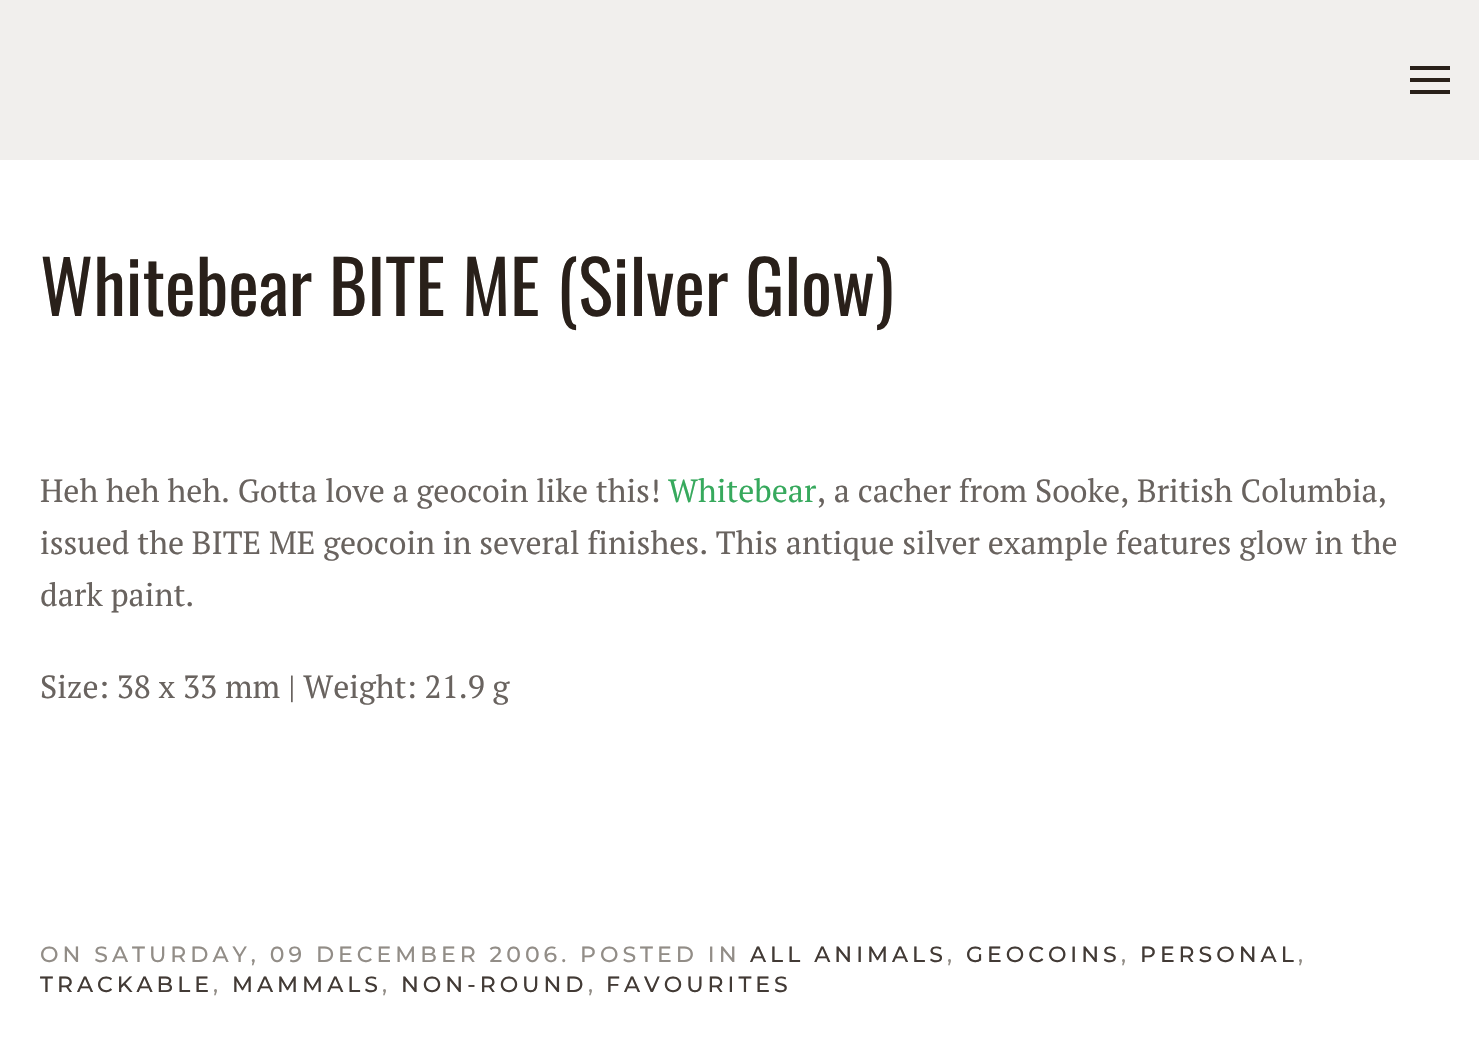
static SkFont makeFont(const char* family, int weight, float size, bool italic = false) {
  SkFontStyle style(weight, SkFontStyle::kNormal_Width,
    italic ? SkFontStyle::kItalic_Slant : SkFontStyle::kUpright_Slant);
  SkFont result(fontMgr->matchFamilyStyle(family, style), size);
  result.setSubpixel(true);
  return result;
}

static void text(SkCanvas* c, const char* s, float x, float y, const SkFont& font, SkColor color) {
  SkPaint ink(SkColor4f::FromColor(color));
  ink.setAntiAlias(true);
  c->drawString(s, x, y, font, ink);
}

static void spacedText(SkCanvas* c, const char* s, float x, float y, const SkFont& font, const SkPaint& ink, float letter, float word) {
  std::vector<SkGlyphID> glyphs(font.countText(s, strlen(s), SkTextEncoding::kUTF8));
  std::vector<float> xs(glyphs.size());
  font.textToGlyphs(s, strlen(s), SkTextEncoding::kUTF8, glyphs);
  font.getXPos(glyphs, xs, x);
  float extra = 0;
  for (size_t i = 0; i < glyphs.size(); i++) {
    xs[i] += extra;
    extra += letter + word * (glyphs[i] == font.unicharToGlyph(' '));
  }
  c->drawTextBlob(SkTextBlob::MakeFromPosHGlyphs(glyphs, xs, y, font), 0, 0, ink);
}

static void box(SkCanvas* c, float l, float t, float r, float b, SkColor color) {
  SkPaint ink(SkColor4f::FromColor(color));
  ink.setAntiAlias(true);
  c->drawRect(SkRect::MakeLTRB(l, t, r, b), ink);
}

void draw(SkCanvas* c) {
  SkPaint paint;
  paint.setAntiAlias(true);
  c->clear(0xffffffff);
  box(c, 0, 0, 1479, 160, 0xfff1efed);
  box(c, 1410, 66, 1450, 70, 0xff29201a);
  box(c, 1410, 78, 1450, 82, 0xff29201a);
  box(c, 1410, 90, 1450, 94, 0xff29201a);
  SkFont face1 = makeFont("Oswald", 400, 73);
  text(c, "Whitebear BITE ME (Silver Glow)", 40, 316, face1, 0xff29201a);
  SkFont face2 = makeFont("PT Serif", 400, 32);
  text(c, "Heh heh heh. Gotta love a geocoin like this!", 40, 502, face2, 0xff69635f);
  text(c, "Whitebear", 668, 502, face2, 0xff37a95d);
  text(c, ", a cacher from Sooke, British Columbia,", 817, 502, face2, 0xff69635f);
  text(c, "issued the BITE ME geocoin in several finishes. This antique silver example features glow in the", 40, 554, face2, 0xff69635f);
  text(c, "dark paint.", 40, 606, face2, 0xff69635f);
  text(c, "Size: 38 x 33 mm | Weight: 21.9 g", 40, 698, face2, 0xff69635f);
  SkFont face3 = makeFont("Montserrat", 500, 22);
  paint.setColor(0xff928d87);
  spacedText(c, "ON SATURDAY, 09 DECEMBER 2006. POSTED IN", 40, 962, face3, paint, 4, 0);
  paint.setColor(0xff423a35);
  spacedText(c, "ALL ANIMALS", 750, 962, face3, paint, 4, 0);
  paint.setColor(0xff928d87);
  spacedText(c, ",", 947, 962, face3, paint, 4, 0);
  paint.setColor(0xff423a35);
  spacedText(c, "GEOCOINS", 966, 962, face3, paint, 4, 0);
  paint.setColor(0xff928d87);
  spacedText(c, ",", 1121, 962, face3, paint, 4, 0);
  paint.setColor(0xff423a35);
  spacedText(c, "PERSONAL", 1140, 962, face3, paint, 4, 0);
  paint.setColor(0xff928d87);
  spacedText(c, ",", 1298, 962, face3, paint, 4, 0);
  paint.setColor(0xff423a35);
  spacedText(c, "TRACKABLE", 40, 992, face3, paint, 4, 0);
  paint.setColor(0xff928d87);
  spacedText(c, ",", 213, 992, face3, paint, 4, 0);
  paint.setColor(0xff423a35);
  spacedText(c, "MAMMALS", 232, 992, face3, paint, 4, 0);
  paint.setColor(0xff928d87);
  spacedText(c, ",", 382, 992, face3, paint, 4, 0);
  paint.setColor(0xff423a35);
  spacedText(c, "NON-ROUND", 401, 992, face3, paint, 4, 0);
  paint.setColor(0xff928d87);
  spacedText(c, ",", 588, 992, face3, paint, 4, 0);
  paint.setColor(0xff423a35);
  spacedText(c, "FAVOURITES", 606, 992, face3, paint, 4, 0);
}
